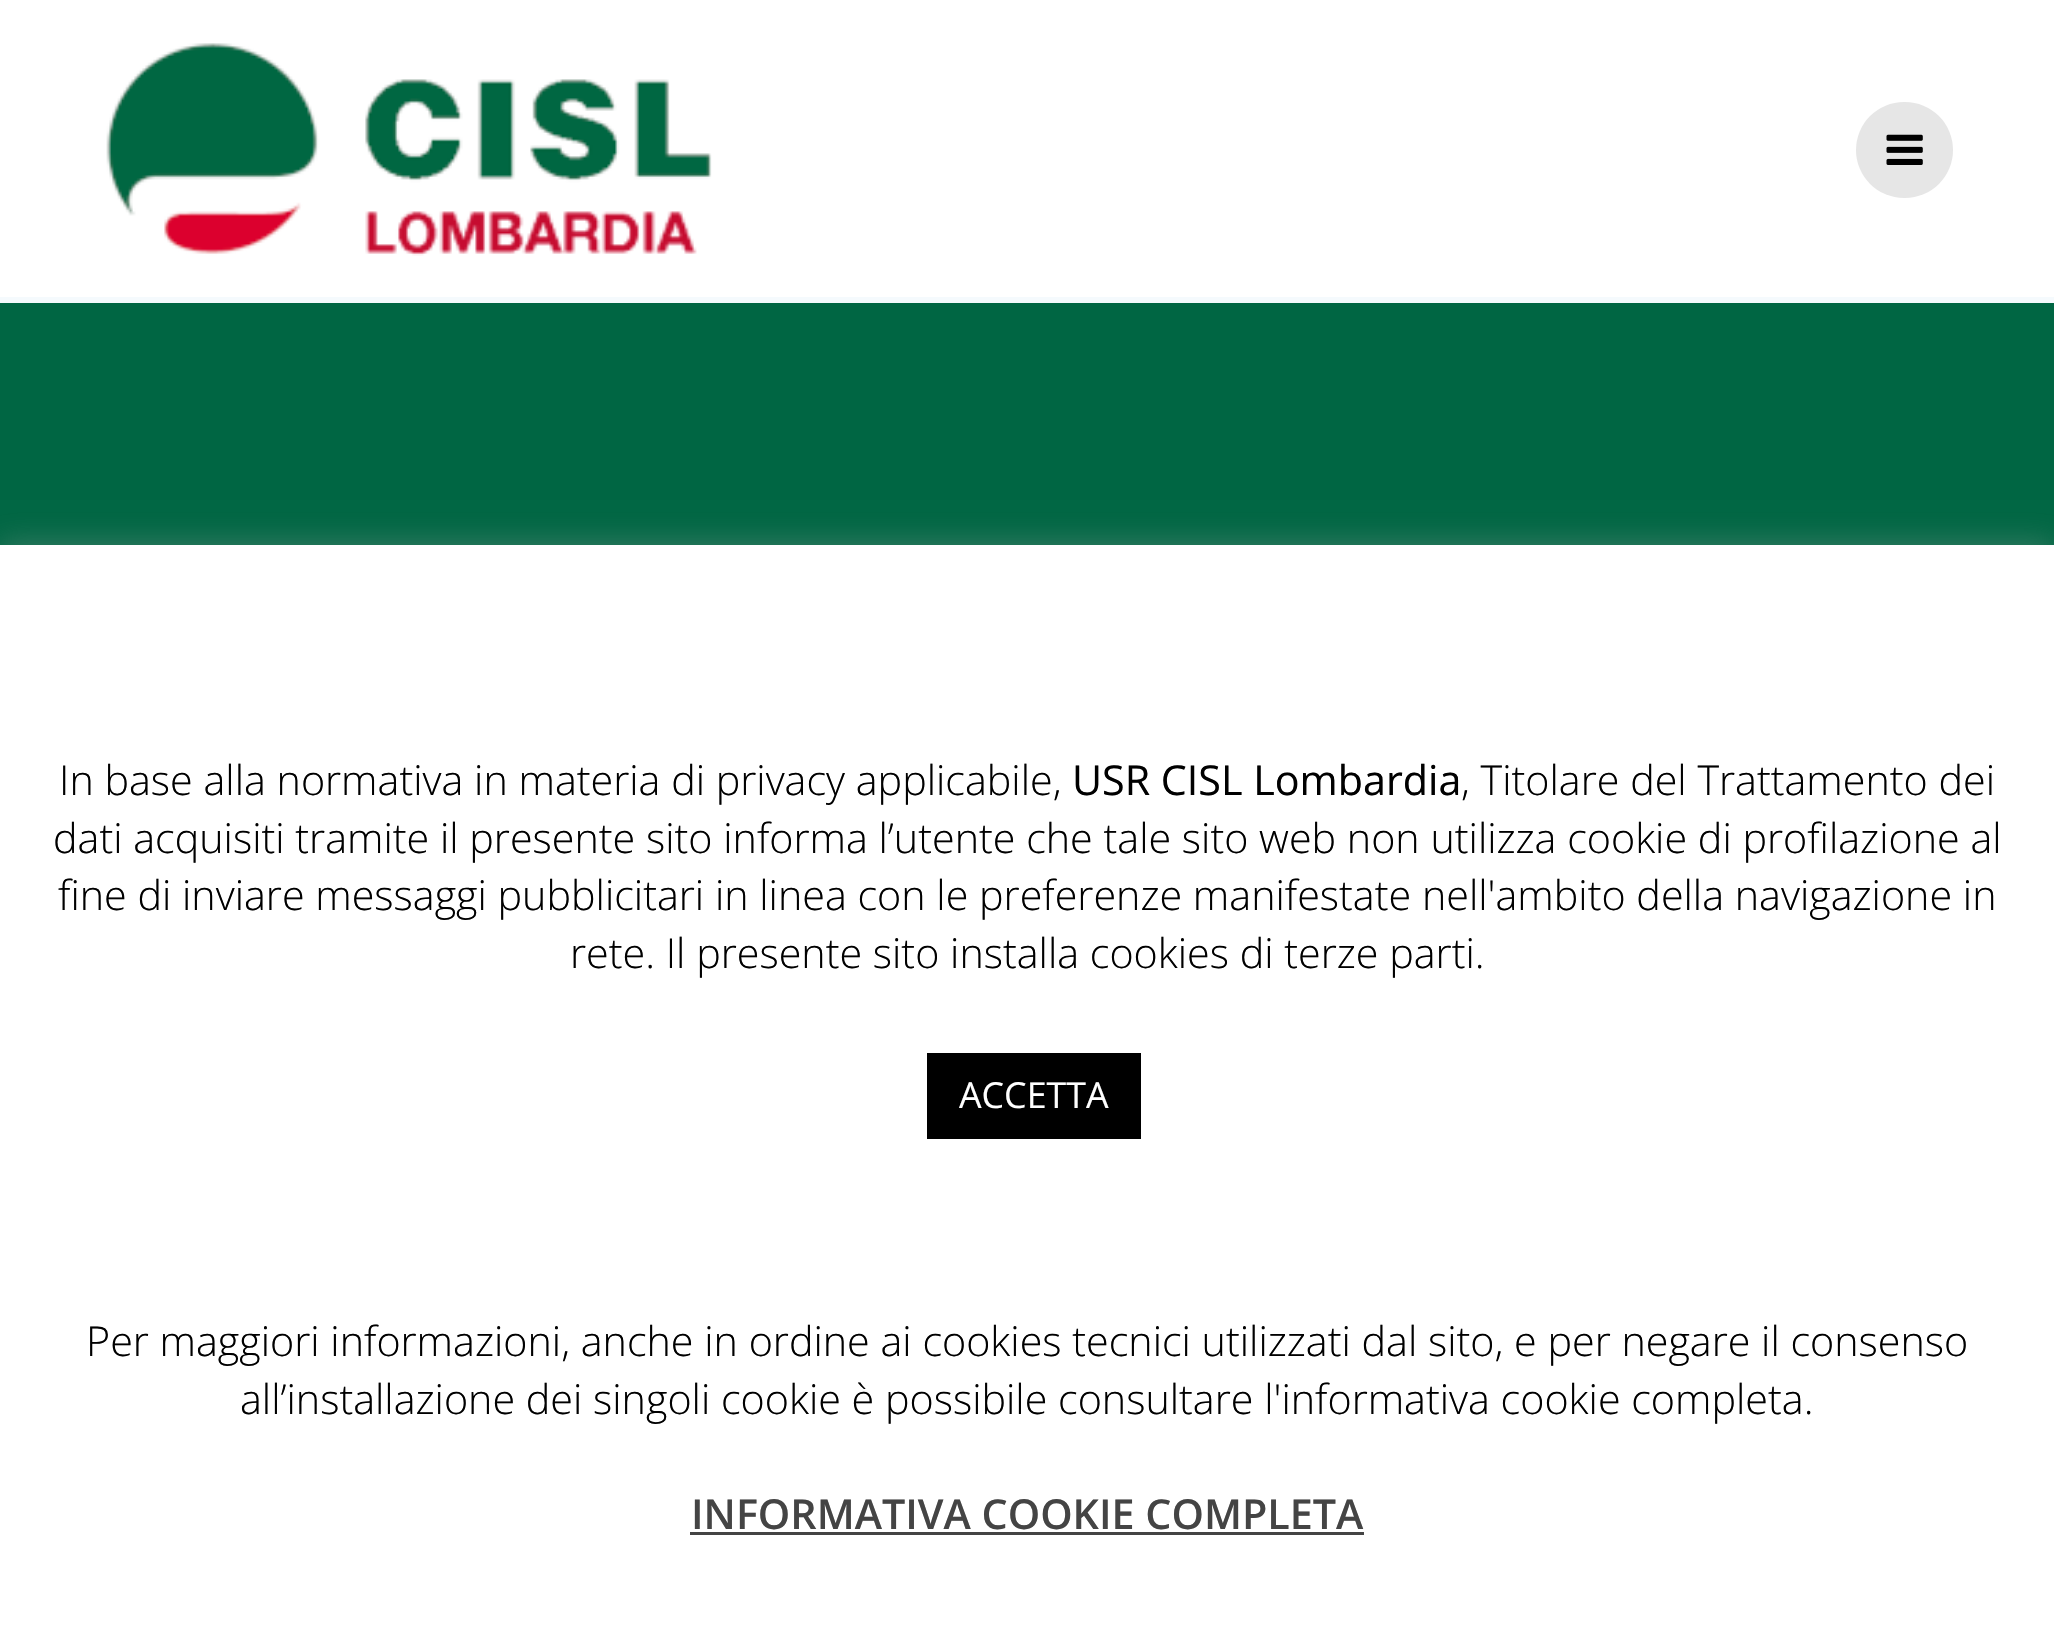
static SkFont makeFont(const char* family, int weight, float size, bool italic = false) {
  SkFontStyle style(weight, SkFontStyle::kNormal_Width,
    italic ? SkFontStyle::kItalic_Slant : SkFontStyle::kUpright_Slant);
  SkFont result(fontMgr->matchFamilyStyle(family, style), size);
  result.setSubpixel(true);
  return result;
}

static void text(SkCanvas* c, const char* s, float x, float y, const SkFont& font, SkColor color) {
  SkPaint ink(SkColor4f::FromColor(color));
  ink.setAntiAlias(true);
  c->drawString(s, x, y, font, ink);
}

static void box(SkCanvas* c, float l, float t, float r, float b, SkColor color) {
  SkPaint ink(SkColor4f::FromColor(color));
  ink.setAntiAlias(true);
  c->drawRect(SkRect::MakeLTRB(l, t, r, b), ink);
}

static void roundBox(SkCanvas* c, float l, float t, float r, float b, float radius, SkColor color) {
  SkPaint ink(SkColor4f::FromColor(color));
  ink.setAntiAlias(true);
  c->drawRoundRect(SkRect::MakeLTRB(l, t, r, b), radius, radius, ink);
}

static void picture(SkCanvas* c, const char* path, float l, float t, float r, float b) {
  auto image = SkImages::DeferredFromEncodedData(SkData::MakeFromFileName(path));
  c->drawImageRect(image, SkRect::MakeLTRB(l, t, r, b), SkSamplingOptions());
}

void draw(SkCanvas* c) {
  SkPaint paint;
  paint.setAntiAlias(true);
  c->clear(0xfff5fafd);
  box(c, 0, 0, 2054, 297, 0xffffffff);
  picture(c, "img_01.png", 106, 43, 712, 256);
  roundBox(c, 1856, 102, 1953, 198, 48, 0xffe6e6e6);
  picture(c, "img_02.png", 1886, 134, 1923, 165);
  box(c, 0, 303, 2054, 545, 0xff006643);
  paint.setColor(0x4dacabab);
  paint.setMaskFilter(SkMaskFilter::MakeBlur(kNormal_SkBlurStyle, 14));
  c->drawRect(SkRect::MakeLTRB(0, 542, 2054, 1631), paint);
  paint.setMaskFilter(nullptr);
  box(c, 0, 545, 2054, 1632, 0xffffffff);
  SkFont face1 = makeFont("Open Sans", 300, 41.25f);
  text(c, "In base alla normativa in materia di privacy applicabile,", 59, 795, face1, 0xff000000);
  SkFont face2 = makeFont("Open Sans", 400, 41.25f);
  text(c, "USR CISL Lombardia", 1072, 795, face2, 0xff000000);
  text(c, ", Titolare del Trattamento dei", 1461, 795, face1, 0xff000000);
  text(c, "dati acquisiti tramite il presente sito informa l’utente che tale sito web non utilizza cookie di profilazione al", 53, 853, face1, 0xff000000);
  text(c, "fine di inviare messaggi pubblicitari in linea con le preferenze manifestate nell'ambito della navigazione in", 58, 910, face1, 0xff000000);
  text(c, "rete. Il presente sito installa cookies di terze parti.", 570, 968, face1, 0xff000000);
  box(c, 927, 1053, 1141, 1139, 0xff000000);
  SkFont face3 = makeFont("Open Sans", 400, 35.75f);
  text(c, "ACCETTA", 959, 1108, face3, 0xffffffff);
  text(c, "Per maggiori informazioni, anche in ordine ai cookies tecnici utilizzati dal sito, e per negare il consenso", 86, 1356, face1, 0xff000000);
  text(c, "all’installazione dei singoli cookie è possibile consultare l'informativa cookie completa.", 240, 1414, face1, 0xff000000);
  SkFont face4 = makeFont("Open Sans", 600, 41.25f);
  text(c, "INFORMATIVA COOKIE COMPLETA", 691, 1529, face4, 0xff444444);
  box(c, 690, 1532, 1364, 1535, 0xff444444);
}
